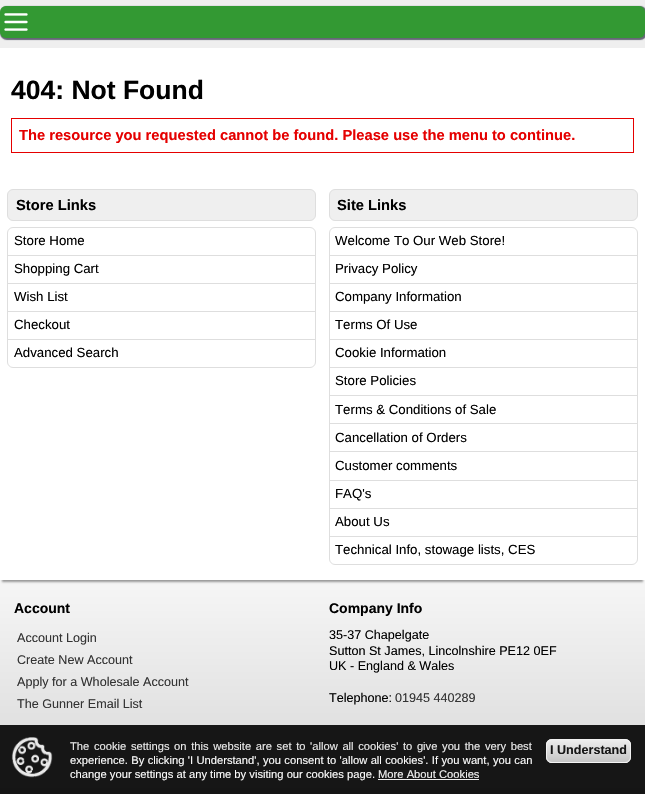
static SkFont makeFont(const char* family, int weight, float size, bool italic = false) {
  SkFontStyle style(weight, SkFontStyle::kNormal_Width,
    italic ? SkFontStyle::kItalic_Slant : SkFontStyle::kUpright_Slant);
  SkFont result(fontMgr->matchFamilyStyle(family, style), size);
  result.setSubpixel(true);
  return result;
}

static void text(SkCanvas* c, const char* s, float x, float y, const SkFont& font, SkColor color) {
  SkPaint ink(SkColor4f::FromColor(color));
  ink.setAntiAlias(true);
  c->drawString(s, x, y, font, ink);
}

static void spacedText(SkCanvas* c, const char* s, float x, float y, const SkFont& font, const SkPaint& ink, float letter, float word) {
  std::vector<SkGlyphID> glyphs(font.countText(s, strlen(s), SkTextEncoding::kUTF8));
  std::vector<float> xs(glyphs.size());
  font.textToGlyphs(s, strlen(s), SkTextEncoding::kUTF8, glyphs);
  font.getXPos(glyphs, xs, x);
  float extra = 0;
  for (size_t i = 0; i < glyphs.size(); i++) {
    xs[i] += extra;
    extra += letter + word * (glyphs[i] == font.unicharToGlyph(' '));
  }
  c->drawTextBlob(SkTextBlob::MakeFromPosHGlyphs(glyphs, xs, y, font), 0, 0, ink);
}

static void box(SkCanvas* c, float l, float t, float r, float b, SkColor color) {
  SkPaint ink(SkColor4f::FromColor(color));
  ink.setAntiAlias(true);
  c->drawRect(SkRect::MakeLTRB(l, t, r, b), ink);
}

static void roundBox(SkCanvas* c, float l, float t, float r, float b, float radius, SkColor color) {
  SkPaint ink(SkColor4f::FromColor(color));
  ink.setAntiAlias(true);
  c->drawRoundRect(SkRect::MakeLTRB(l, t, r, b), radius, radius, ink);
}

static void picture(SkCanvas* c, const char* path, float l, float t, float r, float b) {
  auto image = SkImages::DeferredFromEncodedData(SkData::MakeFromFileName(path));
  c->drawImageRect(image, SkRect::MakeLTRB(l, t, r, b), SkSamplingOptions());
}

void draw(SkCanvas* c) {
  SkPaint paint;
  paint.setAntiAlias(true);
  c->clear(0xffefefef);
  paint.setColor(0xff666777);
  paint.setMaskFilter(SkMaskFilter::MakeBlur(kNormal_SkBlurStyle, 0.5f));
  c->drawRoundRect(SkRect::MakeLTRB(0, 6, 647, 40), 7, 7, paint);
  paint.setMaskFilter(nullptr);
  roundBox(c, 0, 6, 645, 38, 6, 0xff339933);
  picture(c, "img_01.png", 4, 13, 28, 31);
  {
    const SkColor colors[] = {0xfff6f6f6, 0xffd3d3d3};
    const float stops[] = {0, 1};
    const SkPoint ends[] = {{323, 580}, {323, 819}};
    paint.setShader(SkGradientShader::MakeLinear(ends, colors, stops, 2, SkTileMode::kClamp));
    paint.setAlpha(255);
  }
  c->drawRect(SkRect::MakeLTRB(0, 580, 645, 794), paint);
  paint.setShader(nullptr);
  paint.setColor(0xff999999);
  paint.setMaskFilter(SkMaskFilter::MakeBlur(kNormal_SkBlurStyle, 1));
  c->drawRect(SkRect::MakeLTRB(2, 54, 643, 582), paint);
  paint.setMaskFilter(nullptr);
  box(c, 0, 48, 645, 580, 0xffffffff);
  SkFont face1 = makeFont("Liberation Sans", 700, 26.5f);
  text(c, "404: Not Found", 11, 99, face1, 0xff000000);
  paint.setStyle(SkPaint::kStroke_Style);
  paint.setStrokeWidth(1);
  paint.setColor(0xffe50000);
  c->drawRect(SkRect::MakeLTRB(11.5f, 118.5f, 633.5f, 152.5f), paint);
  SkFont face2 = makeFont("Liberation Sans", 700, 14.7f);
  text(c, "The resource you requested cannot be found. Please use the menu to continue.", 19, 140, face2, 0xffe50000);
  paint.setStyle(SkPaint::kFill_Style);
  paint.setColor(0xffefefef);
  c->drawRoundRect(SkRect::MakeLTRB(7.5f, 189.5f, 315.5f, 220.5f), 5.5f, 5.5f, paint);
  paint.setStyle(SkPaint::kStroke_Style);
  paint.setColor(0xffdedede);
  c->drawRoundRect(SkRect::MakeLTRB(7.5f, 189.5f, 315.5f, 220.5f), 5.5f, 5.5f, paint);
  text(c, "Store Links", 16, 210, face2, 0xff000000);
  c->drawRoundRect(SkRect::MakeLTRB(7.5f, 227.5f, 315.5f, 367.5f), 5.5f, 5.5f, paint);
  box(c, 8, 255, 315, 256, 0xffdedede);
  SkFont face3 = makeFont("Liberation Sans", 400, 13.25f);
  text(c, "Store Home", 14, 245, face3, 0xff000000);
  box(c, 8, 283, 315, 284, 0xffdedede);
  text(c, "Shopping Cart", 14, 273, face3, 0xff000000);
  box(c, 8, 311, 315, 312, 0xffdedede);
  text(c, "Wish List", 14, 301, face3, 0xff000000);
  box(c, 8, 339, 315, 340, 0xffdedede);
  text(c, "Checkout", 14, 329, face3, 0xff000000);
  text(c, "Advanced Search", 14, 357, face3, 0xff000000);
  paint.setStyle(SkPaint::kFill_Style);
  paint.setColor(0xffefefef);
  c->drawRoundRect(SkRect::MakeLTRB(329.5f, 189.5f, 637.5f, 220.5f), 5.5f, 5.5f, paint);
  paint.setStyle(SkPaint::kStroke_Style);
  paint.setColor(0xffdedede);
  c->drawRoundRect(SkRect::MakeLTRB(329.5f, 189.5f, 637.5f, 220.5f), 5.5f, 5.5f, paint);
  text(c, "Site Links", 337, 210, face2, 0xff000000);
  c->drawRoundRect(SkRect::MakeLTRB(329.5f, 227.5f, 637.5f, 564.5f), 5.5f, 5.5f, paint);
  box(c, 330, 255, 637, 256, 0xffdedede);
  text(c, "Welcome To Our Web Store!", 335, 245, face3, 0xff000000);
  box(c, 330, 283, 637, 284, 0xffdedede);
  text(c, "Privacy Policy", 335, 273, face3, 0xff000000);
  box(c, 330, 311, 637, 312, 0xffdedede);
  text(c, "Company Information", 335, 301, face3, 0xff000000);
  box(c, 330, 339, 637, 340, 0xffdedede);
  text(c, "Terms Of Use", 335, 329, face3, 0xff000000);
  box(c, 330, 367, 637, 368, 0xffdedede);
  text(c, "Cookie Information", 335, 357, face3, 0xff000000);
  box(c, 330, 395, 637, 396, 0xffdedede);
  text(c, "Store Policies", 335, 385, face3, 0xff000000);
  box(c, 330, 423, 637, 424, 0xffdedede);
  text(c, "Terms & Conditions of Sale", 335, 414, face3, 0xff000000);
  box(c, 330, 451, 637, 452, 0xffdedede);
  text(c, "Cancellation of Orders", 335, 442, face3, 0xff000000);
  box(c, 330, 480, 637, 481, 0xffdedede);
  text(c, "Customer comments", 335, 470, face3, 0xff000000);
  box(c, 330, 508, 637, 509, 0xffdedede);
  text(c, "FAQ's", 335, 498, face3, 0xff000000);
  box(c, 330, 536, 637, 537, 0xffdedede);
  text(c, "About Us", 335, 526, face3, 0xff000000);
  text(c, "Technical Info, stowage lists, CES", 335, 554, face3, 0xff000000);
  SkFont face4 = makeFont("Liberation Sans", 700, 14);
  text(c, "Account", 14, 613, face4, 0xff000000);
  SkFont face5 = makeFont("Liberation Sans", 400, 12.6f);
  text(c, "Account Login", 17, 642, face5, 0xff333333);
  text(c, "Create New Account", 17, 664, face5, 0xff333333);
  text(c, "Apply for a Wholesale Account", 17, 686, face5, 0xff333333);
  text(c, "The Gunner Email List", 17, 708, face5, 0xff333333);
  text(c, "Company Info", 329, 613, face4, 0xff000000);
  text(c, "35-37 Chapelgate", 329, 639, face5, 0xff000000);
  text(c, "Sutton St James, Lincolnshire PE12 0EF", 329, 655, face5, 0xff000000);
  text(c, "UK - England & Wales", 329, 670, face5, 0xff000000);
  text(c, "Telephone:", 329, 702, face5, 0xff000000);
  text(c, "01945 440289", 395, 702, face5, 0xff333333);
  box(c, 0, 725, 645, 794, 0xe6000000);
  picture(c, "img_02.png", 11, 737, 53, 778);
  SkFont face6 = makeFont("Liberation Sans", 400, 11.2f);
  paint.setStyle(SkPaint::kFill_Style);
  paint.setColor(0xffe8e8e8);
  spacedText(c, "The cookie settings on this website are set to 'allow all cookies' to give you the very best", 70, 750, face6, paint, 0, 1.5f);
  paint.setColor(0xfffbfbfb);
  spacedText(c, "experience. By clicking 'I Understand', you consent to 'allow all cookies'. If you want, you can", 70, 764, face6, paint, 0, 0.25f);
  text(c, "change your settings at any time by visiting our cookies page.", 70, 778, face6, 0xfffbfbfb);
  text(c, "More About Cookies", 378, 778, face6, 0xfff1f1f1);
  box(c, 378, 779, 479, 780, 0xfff1f1f1);
  roundBox(c, 546, 739, 631, 763, 6, 0xffdedede);
  c->save();
  c->clipPath(SkPathBuilder().moveTo(552, 739).lineTo(625, 739).cubicTo(628.5f, 739, 631, 741.5f, 631, 745).lineTo(631, 757).cubicTo(631, 760.5f, 628.5f, 763, 625, 763).lineTo(552, 763).cubicTo(548.5f, 763, 546, 760.5f, 546, 757).lineTo(546, 745).cubicTo(546, 741.5f, 548.5f, 739, 552, 739).close().detach(), true);
  {
    const SkColor colors[] = {0xffededed, 0xffc5c5c5};
    const float stops[] = {0, 1};
    const SkPoint ends[] = {{589, 718}, {589, 740}};
    paint.setShader(SkGradientShader::MakeLinear(ends, colors, stops, 2, SkTileMode::kClamp));
    paint.setAlpha(255);
  }
  c->drawRect(SkRect::MakeLTRB(546, 739, 631, 740), paint);
  {
    const SkColor colors[] = {0xe6eeeeee, 0xe6c2c2c2};
    const float stops[] = {0, 1};
    const SkPoint ends[] = {{589, 740}, {589, 762}};
    paint.setShader(SkGradientShader::MakeLinear(ends, colors, stops, 2, SkTileMode::kClamp));
    paint.setAlpha(255);
  }
  c->drawRect(SkRect::MakeLTRB(546, 740, 631, 762), paint);
  {
    const SkColor colors[] = {0xffececec, 0xffc5c5c5};
    const float stops[] = {0, 1};
    const SkPoint ends[] = {{589, 762}, {589, 784}};
    paint.setShader(SkGradientShader::MakeLinear(ends, colors, stops, 2, SkTileMode::kClamp));
    paint.setAlpha(255);
  }
  c->drawRect(SkRect::MakeLTRB(546, 762, 631, 763), paint);
  c->restore();
  paint.setStyle(SkPaint::kStroke_Style);
  paint.setShader(nullptr);
  paint.setColor(0xe6f4f4f4);
  c->drawRoundRect(SkRect::MakeLTRB(546.5f, 739.5f, 630.5f, 762.5f), 5.5f, 5.5f, paint);
  SkFont face7 = makeFont("Liberation Sans", 700, 12.6f);
  text(c, "I Understand", 550, 754, face7, 0xff161616);
}
